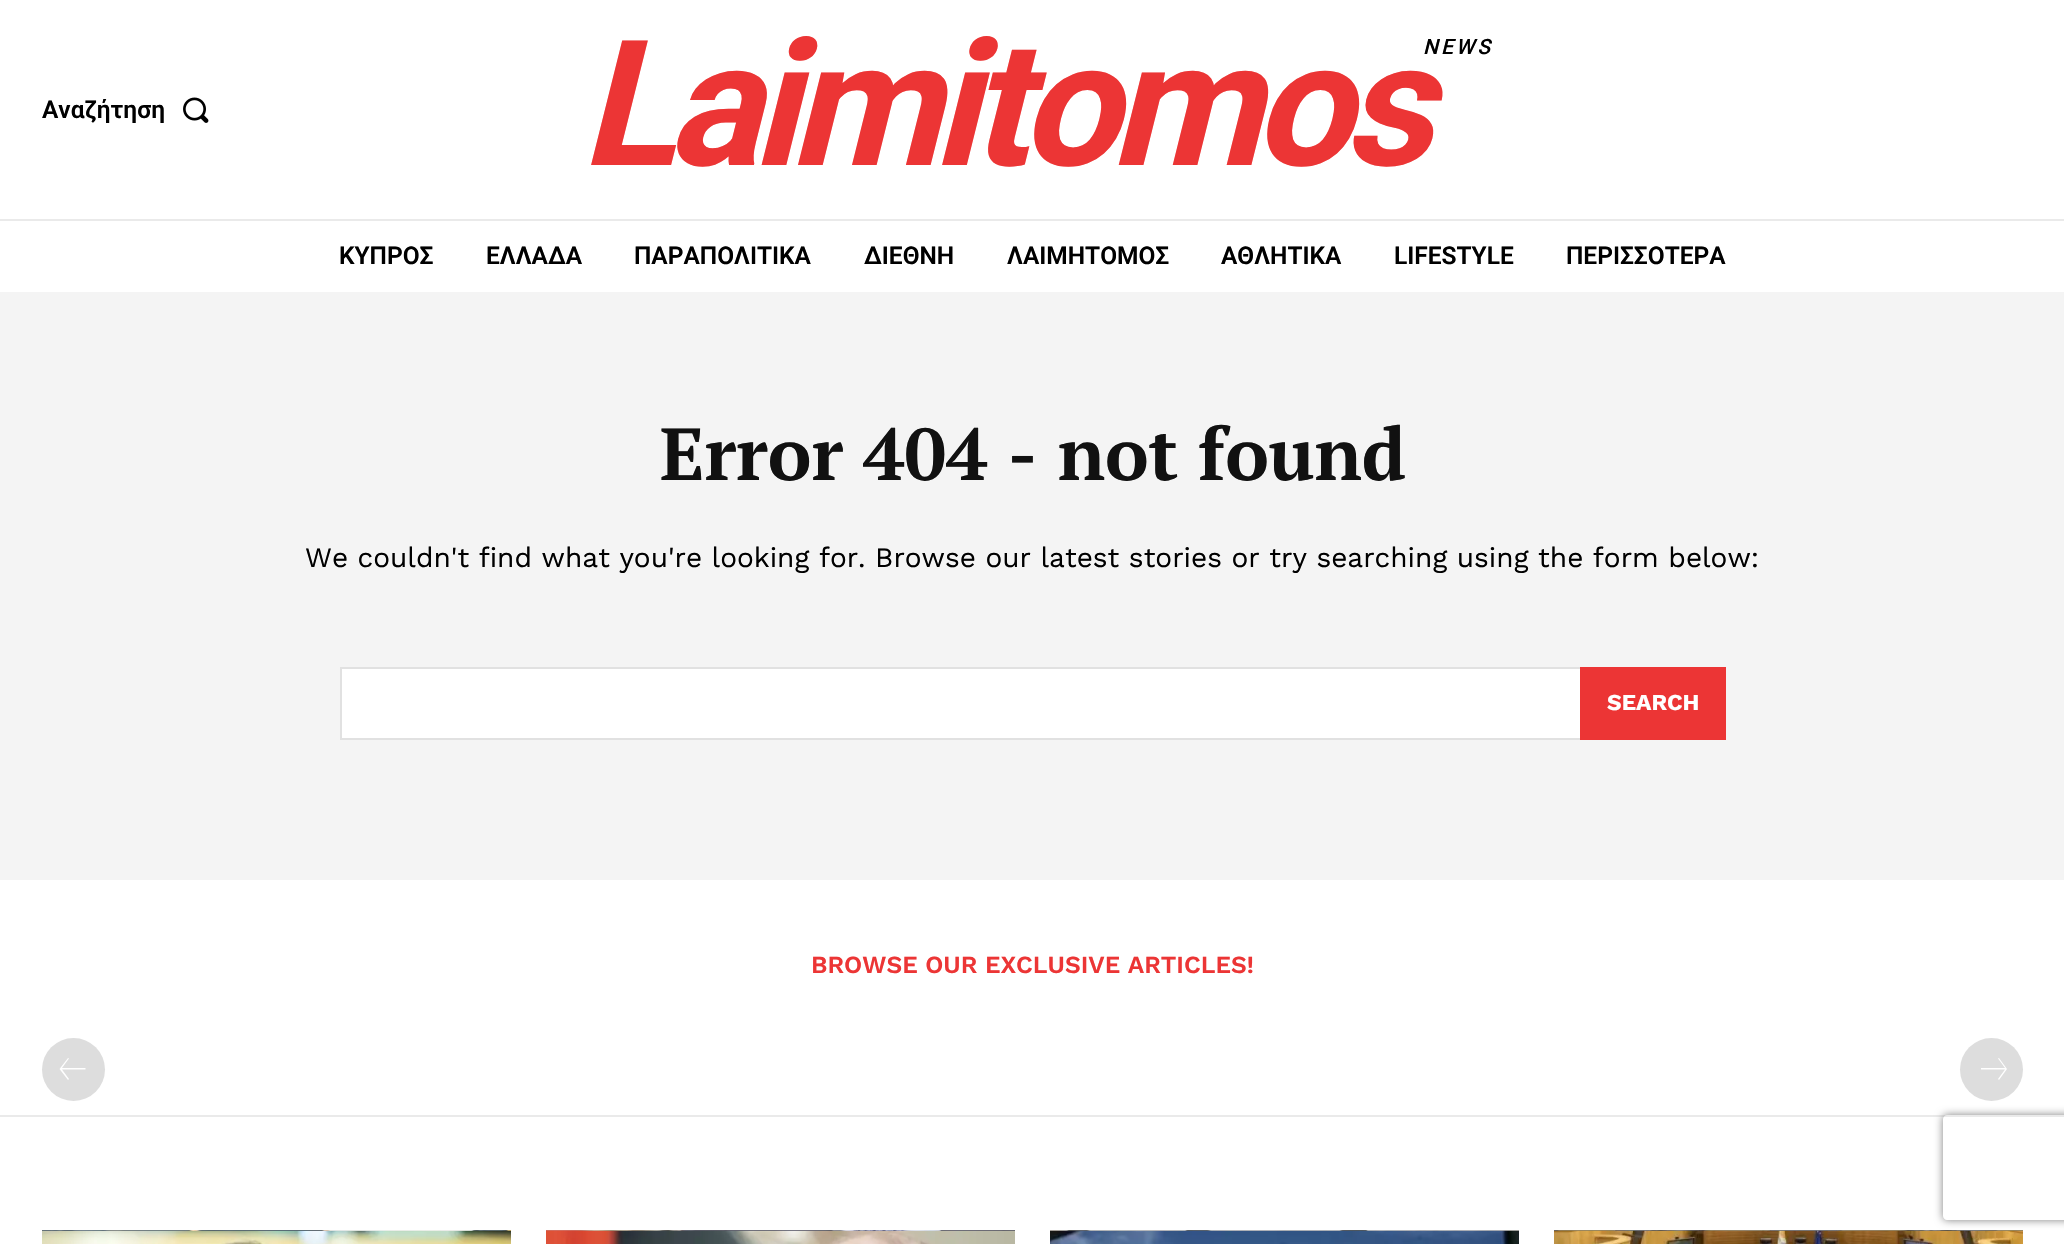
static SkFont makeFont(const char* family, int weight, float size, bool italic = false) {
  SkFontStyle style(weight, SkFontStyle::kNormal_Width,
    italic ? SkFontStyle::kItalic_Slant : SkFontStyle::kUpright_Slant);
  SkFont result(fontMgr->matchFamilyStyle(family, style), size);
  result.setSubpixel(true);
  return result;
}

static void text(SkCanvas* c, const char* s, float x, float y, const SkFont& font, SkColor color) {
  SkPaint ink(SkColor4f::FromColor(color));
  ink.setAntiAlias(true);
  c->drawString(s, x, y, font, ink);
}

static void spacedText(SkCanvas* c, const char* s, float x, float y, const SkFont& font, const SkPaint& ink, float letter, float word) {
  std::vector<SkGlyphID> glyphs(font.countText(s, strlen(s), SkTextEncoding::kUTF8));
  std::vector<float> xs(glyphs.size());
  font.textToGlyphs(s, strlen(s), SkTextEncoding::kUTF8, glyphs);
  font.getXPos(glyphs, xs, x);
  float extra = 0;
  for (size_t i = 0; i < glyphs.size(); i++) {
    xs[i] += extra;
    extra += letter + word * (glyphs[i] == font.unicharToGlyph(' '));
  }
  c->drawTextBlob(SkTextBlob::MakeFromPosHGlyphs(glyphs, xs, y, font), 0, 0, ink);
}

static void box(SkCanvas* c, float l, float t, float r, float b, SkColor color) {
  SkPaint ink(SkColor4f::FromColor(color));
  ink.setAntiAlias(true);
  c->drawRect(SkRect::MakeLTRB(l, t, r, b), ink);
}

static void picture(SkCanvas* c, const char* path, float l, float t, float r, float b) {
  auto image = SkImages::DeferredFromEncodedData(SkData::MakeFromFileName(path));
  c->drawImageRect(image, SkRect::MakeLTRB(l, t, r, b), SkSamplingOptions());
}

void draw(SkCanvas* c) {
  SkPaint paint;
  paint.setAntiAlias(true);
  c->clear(0xffffffff);
  SkFont face1 = makeFont("Roboto", 600, 24.5f);
  text(c, "Αναζήτηση", 42, 118, face1, 0xff000000);
  picture(c, "img_01.png", 183, 97, 209, 123);
  SkFont face2 = makeFont("Roboto", 700, 175, true);
  paint.setColor(0xffec3535);
  spacedText(c, "Laimitomos", 580, 165, face2, paint, -8.75f, 0);
  SkFont face3 = makeFont("Roboto", 500, 21, true);
  paint.setColor(0xff000000);
  spacedText(c, "NEWS", 1423, 54, face3, paint, 3, 0);
  box(c, 0, 219, 2064, 221, 0xffeaeaea);
  text(c, "ΚΥΠΡΟΣ", 339, 264, face1, 0xff000000);
  text(c, "ΕΛΛΑΔΑ", 486, 264, face1, 0xff000000);
  text(c, "ΠΑΡΑΠΟΛΙΤΙΚΑ", 634, 264, face1, 0xff000000);
  text(c, "ΔΙΕΘΝΗ", 864, 264, face1, 0xff000000);
  text(c, "ΛΑΙΜΗΤΟΜΟΣ", 1007, 264, face1, 0xff000000);
  text(c, "ΑΘΛΗΤΙΚΑ", 1221, 264, face1, 0xff000000);
  text(c, "LIFESTYLE", 1394, 264, face1, 0xff000000);
  text(c, "ΠΕΡΙΣΣΟΤΕΡΑ", 1566, 264, face1, 0xff000000);
  box(c, 0, 292, 2064, 880, 0xfff4f4f4);
  SkFont face4 = makeFont("PT Serif", 700, 73.5f);
  text(c, "Error 404 - not found", 660, 480, face4, 0xff111111);
  SkFont face5 = makeFont("Work Sans", 400, 28);
  text(c, "We couldn't find what you're looking for. Browse our latest stories or try searching using the form below:", 305, 567, face5, 0xff000000);
  box(c, 342, 669, 1580, 738, 0xffffffff);
  paint.setStyle(SkPaint::kStroke_Style);
  paint.setStrokeWidth(2);
  paint.setColor(0xffe1e1e1);
  c->drawRect(SkRect::MakeLTRB(341, 668, 1725, 739), paint);
  box(c, 1580, 667, 1726, 740, 0xffec3535);
  SkFont face6 = makeFont("Work Sans", 700, 22.75f);
  text(c, "SEARCH", 1607, 710, face6, 0xffffffff);
  SkFont face7 = makeFont("Work Sans", 600, 24.5f);
  text(c, "BROWSE OUR EXCLUSIVE ARTICLES!", 811, 973, face7, 0xffec3535);
  paint.setStyle(SkPaint::kFill_Style);
  paint.setColor(0xffdddddd);
  c->drawCircle(73.5f, 1069.5f, 31.5f, paint);
  paint.setColor(0xffffffff);
  c->drawPath(SkPathBuilder().moveTo(69, 1079).lineTo(62, 1069.5f).lineTo(85.5f, 1069.5f).lineTo(85.5f, 1068).lineTo(62, 1068).lineTo(69, 1058.5f).lineTo(68, 1058).lineTo(59.5f, 1069).lineTo(68, 1080).close().detach(), paint);
  paint.setColor(0xffdddddd);
  c->drawCircle(1991.5f, 1069.5f, 31.5f, paint);
  paint.setColor(0xffffffff);
  c->drawPath(SkPathBuilder().moveTo(1998, 1079).lineTo(1999, 1080).lineTo(2007, 1069).lineTo(1999, 1058).lineTo(1998, 1058.5f).lineTo(2005, 1068).lineTo(1981, 1068).lineTo(1981, 1069.5f).lineTo(2005, 1069.5f).close().detach(), paint);
  box(c, 0, 1115, 2064, 1117, 0xffeaeaea);
  picture(c, "img_02.png", 42, 1230, 511, 1244);
  picture(c, "img_03.png", 546, 1230, 1015, 1244);
  picture(c, "img_04.png", 1050, 1230, 1519, 1244);
  picture(c, "img_05.png", 1554, 1230, 2023, 1244);
  c->save();
  c->clipPath(SkPathBuilder(SkPathFillType::kEvenOdd).moveTo(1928, 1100).lineTo(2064, 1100).lineTo(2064, 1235).lineTo(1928, 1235).close().moveTo(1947, 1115).lineTo(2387, 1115).cubicTo(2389, 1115, 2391, 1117, 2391, 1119).lineTo(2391, 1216).cubicTo(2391, 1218, 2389, 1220, 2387, 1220).lineTo(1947, 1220).cubicTo(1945, 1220, 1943, 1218, 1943, 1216).lineTo(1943, 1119).cubicTo(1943, 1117, 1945, 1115, 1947, 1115).close().detach(), true);
  paint.setColor(0xff808080);
  paint.setMaskFilter(SkMaskFilter::MakeBlur(kNormal_SkBlurStyle, 4.5f));
  c->drawRoundRect(SkRect::MakeLTRB(1943, 1115, 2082, 1220), 4, 4, paint);
  paint.setMaskFilter(nullptr);
  c->restore();
}
